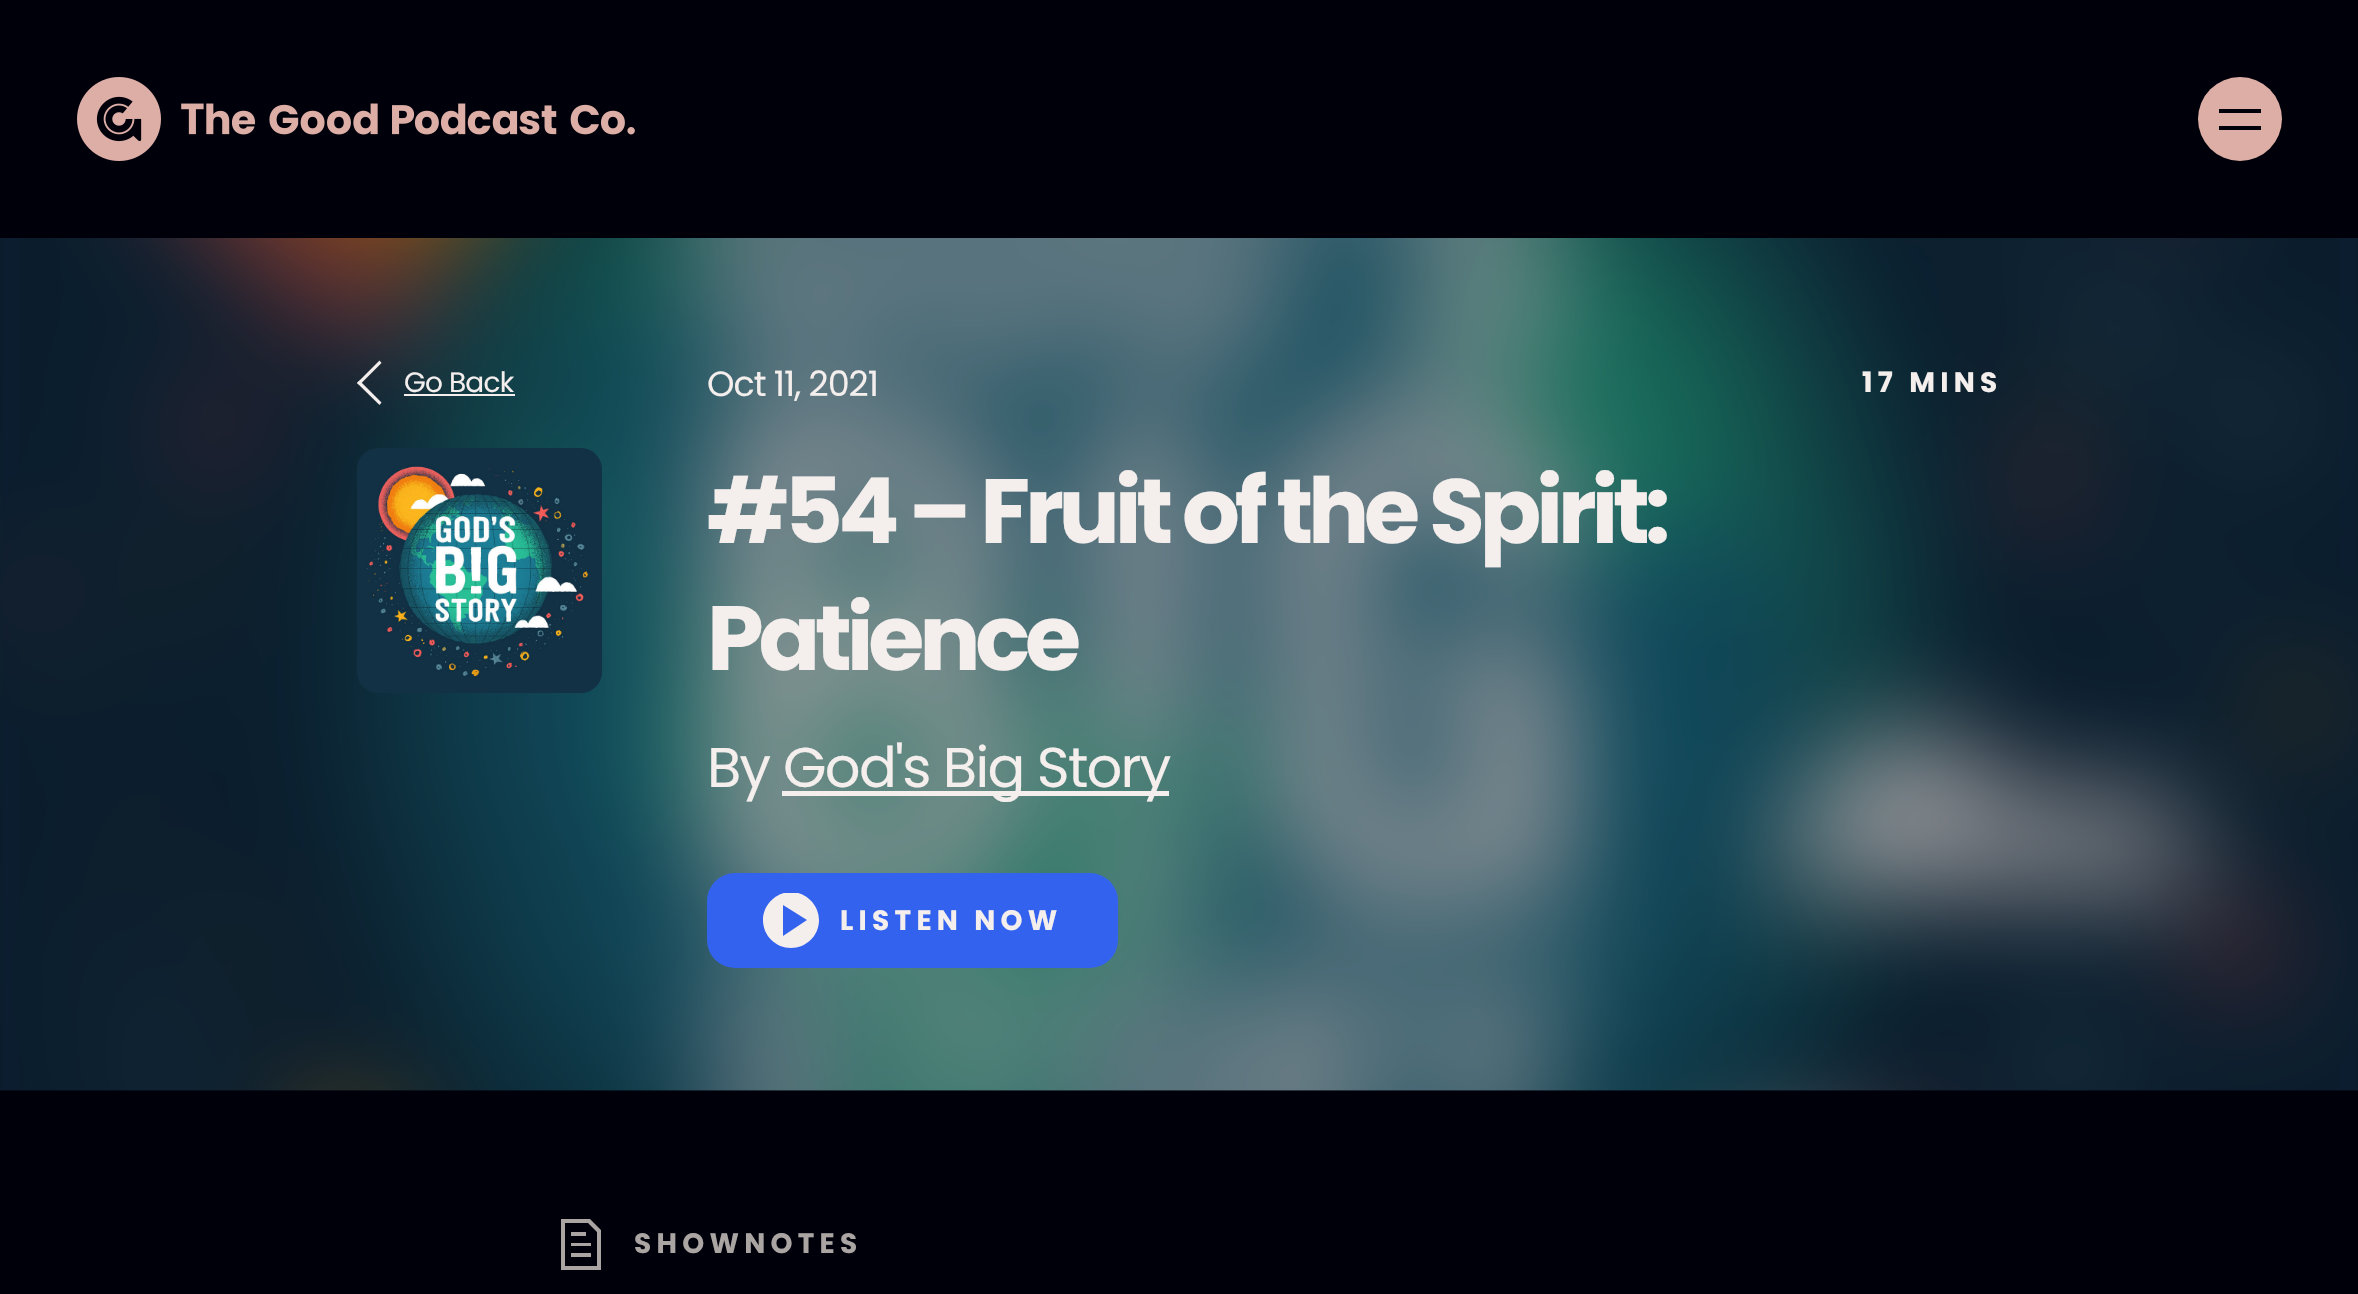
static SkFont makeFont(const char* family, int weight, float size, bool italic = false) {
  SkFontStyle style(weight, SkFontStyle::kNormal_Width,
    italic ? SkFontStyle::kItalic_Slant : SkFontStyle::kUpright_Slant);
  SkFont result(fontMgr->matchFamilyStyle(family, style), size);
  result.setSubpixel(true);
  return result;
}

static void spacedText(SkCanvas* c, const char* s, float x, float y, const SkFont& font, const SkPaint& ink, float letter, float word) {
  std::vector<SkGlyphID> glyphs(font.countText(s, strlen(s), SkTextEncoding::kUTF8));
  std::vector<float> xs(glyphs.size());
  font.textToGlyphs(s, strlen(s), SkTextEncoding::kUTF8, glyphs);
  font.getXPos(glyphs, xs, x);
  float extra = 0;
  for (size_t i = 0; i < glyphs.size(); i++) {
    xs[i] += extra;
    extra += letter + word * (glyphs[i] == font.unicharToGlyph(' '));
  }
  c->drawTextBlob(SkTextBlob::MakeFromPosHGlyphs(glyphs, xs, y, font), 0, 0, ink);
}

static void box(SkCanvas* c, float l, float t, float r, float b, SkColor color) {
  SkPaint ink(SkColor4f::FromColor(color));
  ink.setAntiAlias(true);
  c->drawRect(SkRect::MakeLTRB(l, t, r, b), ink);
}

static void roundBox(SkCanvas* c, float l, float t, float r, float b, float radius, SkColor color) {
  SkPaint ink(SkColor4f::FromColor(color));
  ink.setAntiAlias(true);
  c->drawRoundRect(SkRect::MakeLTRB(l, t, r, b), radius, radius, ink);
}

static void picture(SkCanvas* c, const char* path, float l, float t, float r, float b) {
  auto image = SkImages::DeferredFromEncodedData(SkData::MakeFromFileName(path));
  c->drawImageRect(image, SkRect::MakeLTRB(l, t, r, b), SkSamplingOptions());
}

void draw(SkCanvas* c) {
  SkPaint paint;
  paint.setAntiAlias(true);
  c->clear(0xff00000a);
  picture(c, "img_01.png", 77, 77, 635, 161);
  paint.setColor(0xffddaea6);
  c->drawCircle(2240, 119, 42, paint);
  box(c, 2219, 109, 2261, 113, 0xff00000a);
  box(c, 2219, 126, 2261, 130, 0xff00000a);
  picture(c, "img_02.png", 0, 238, 2358, 1091);
  paint.setColor(0xfff4eeed);
  c->drawPath(SkPathBuilder().moveTo(357, 383).lineTo(379.5f, 360.5f).lineTo(381.5f, 363).lineTo(359.5f, 385).close().detach(), paint);
  c->drawPath(SkPathBuilder().moveTo(359.5f, 380.5f).lineTo(381.5f, 402.5f).lineTo(379.5f, 405).lineTo(357, 383).close().detach(), paint);
  SkFont face1 = makeFont("Poppins", 400, 28);
  spacedText(c, "Go Back", 404, 392, face1, paint, -0.75f, 0);
  box(c, 404, 394, 515, 396, 0xfff4eeed);
  SkFont face2 = makeFont("Poppins", 400, 35);
  spacedText(c, "Oct 11, 2021", 707, 396, face2, paint, -1, 0);
  SkFont face3 = makeFont("Poppins", 700, 28);
  spacedText(c, "17 MINS", 1862, 392, face3, paint, 5.25f, 0);
  picture(c, "img_03.png", 357, 448, 602, 693);
  SkFont face4 = makeFont("Poppins", 700, 91);
  spacedText(c, "#54 – Fruit of the Spirit:", 707, 543, face4, paint, -5.25f, 0);
  spacedText(c, "Patience", 707, 670, face4, paint, -5.25f, 0);
  SkFont face5 = makeFont("Poppins", 400, 56);
  spacedText(c, "By", 707, 787, face5, paint, -1.75f, 0);
  box(c, 782, 791, 1169, 796, 0xfff4eeed);
  spacedText(c, "God's Big Story", 783, 787, face5, paint, -1.75f, 0);
  roundBox(c, 707, 873, 1118, 968, 28, 0xff3363ee);
  c->save();
  c->clipRect(SkRect::MakeLTRB(763, 893, 819, 949));
  c->drawPath(SkPathBuilder(SkPathFillType::kEvenOdd).moveTo(791, 948).cubicTo(806, 948, 819, 936, 819, 920).cubicTo(819, 905, 806, 892, 791, 892).cubicTo(776, 892, 763, 905, 763, 920).cubicTo(763, 936, 776, 948, 791, 948).close().moveTo(807, 920).lineTo(783, 905).lineTo(783, 936).close().detach(), paint);
  c->restore();
  spacedText(c, "LISTEN NOW", 840, 930, face3, paint, 5.25f, 0);
  box(c, 571, 1243, 591, 1246, 0xffaaa4a3);
  box(c, 571, 1232, 586, 1236, 0xffaaa4a3);
  box(c, 571, 1253, 591, 1257, 0xffaaa4a3);
  paint.setColor(0xffaaa4a3);
  c->drawPath(SkPathBuilder(SkPathFillType::kEvenOdd).moveTo(590, 1219).lineTo(561, 1219).lineTo(561, 1270).lineTo(601, 1270).lineTo(601, 1230).close().moveTo(565, 1266).lineTo(565, 1223).lineTo(588, 1223).lineTo(597, 1232).lineTo(597, 1266).close().detach(), paint);
  spacedText(c, "SHOWNOTES", 634, 1253, face3, paint, 5.25f, 0);
}
